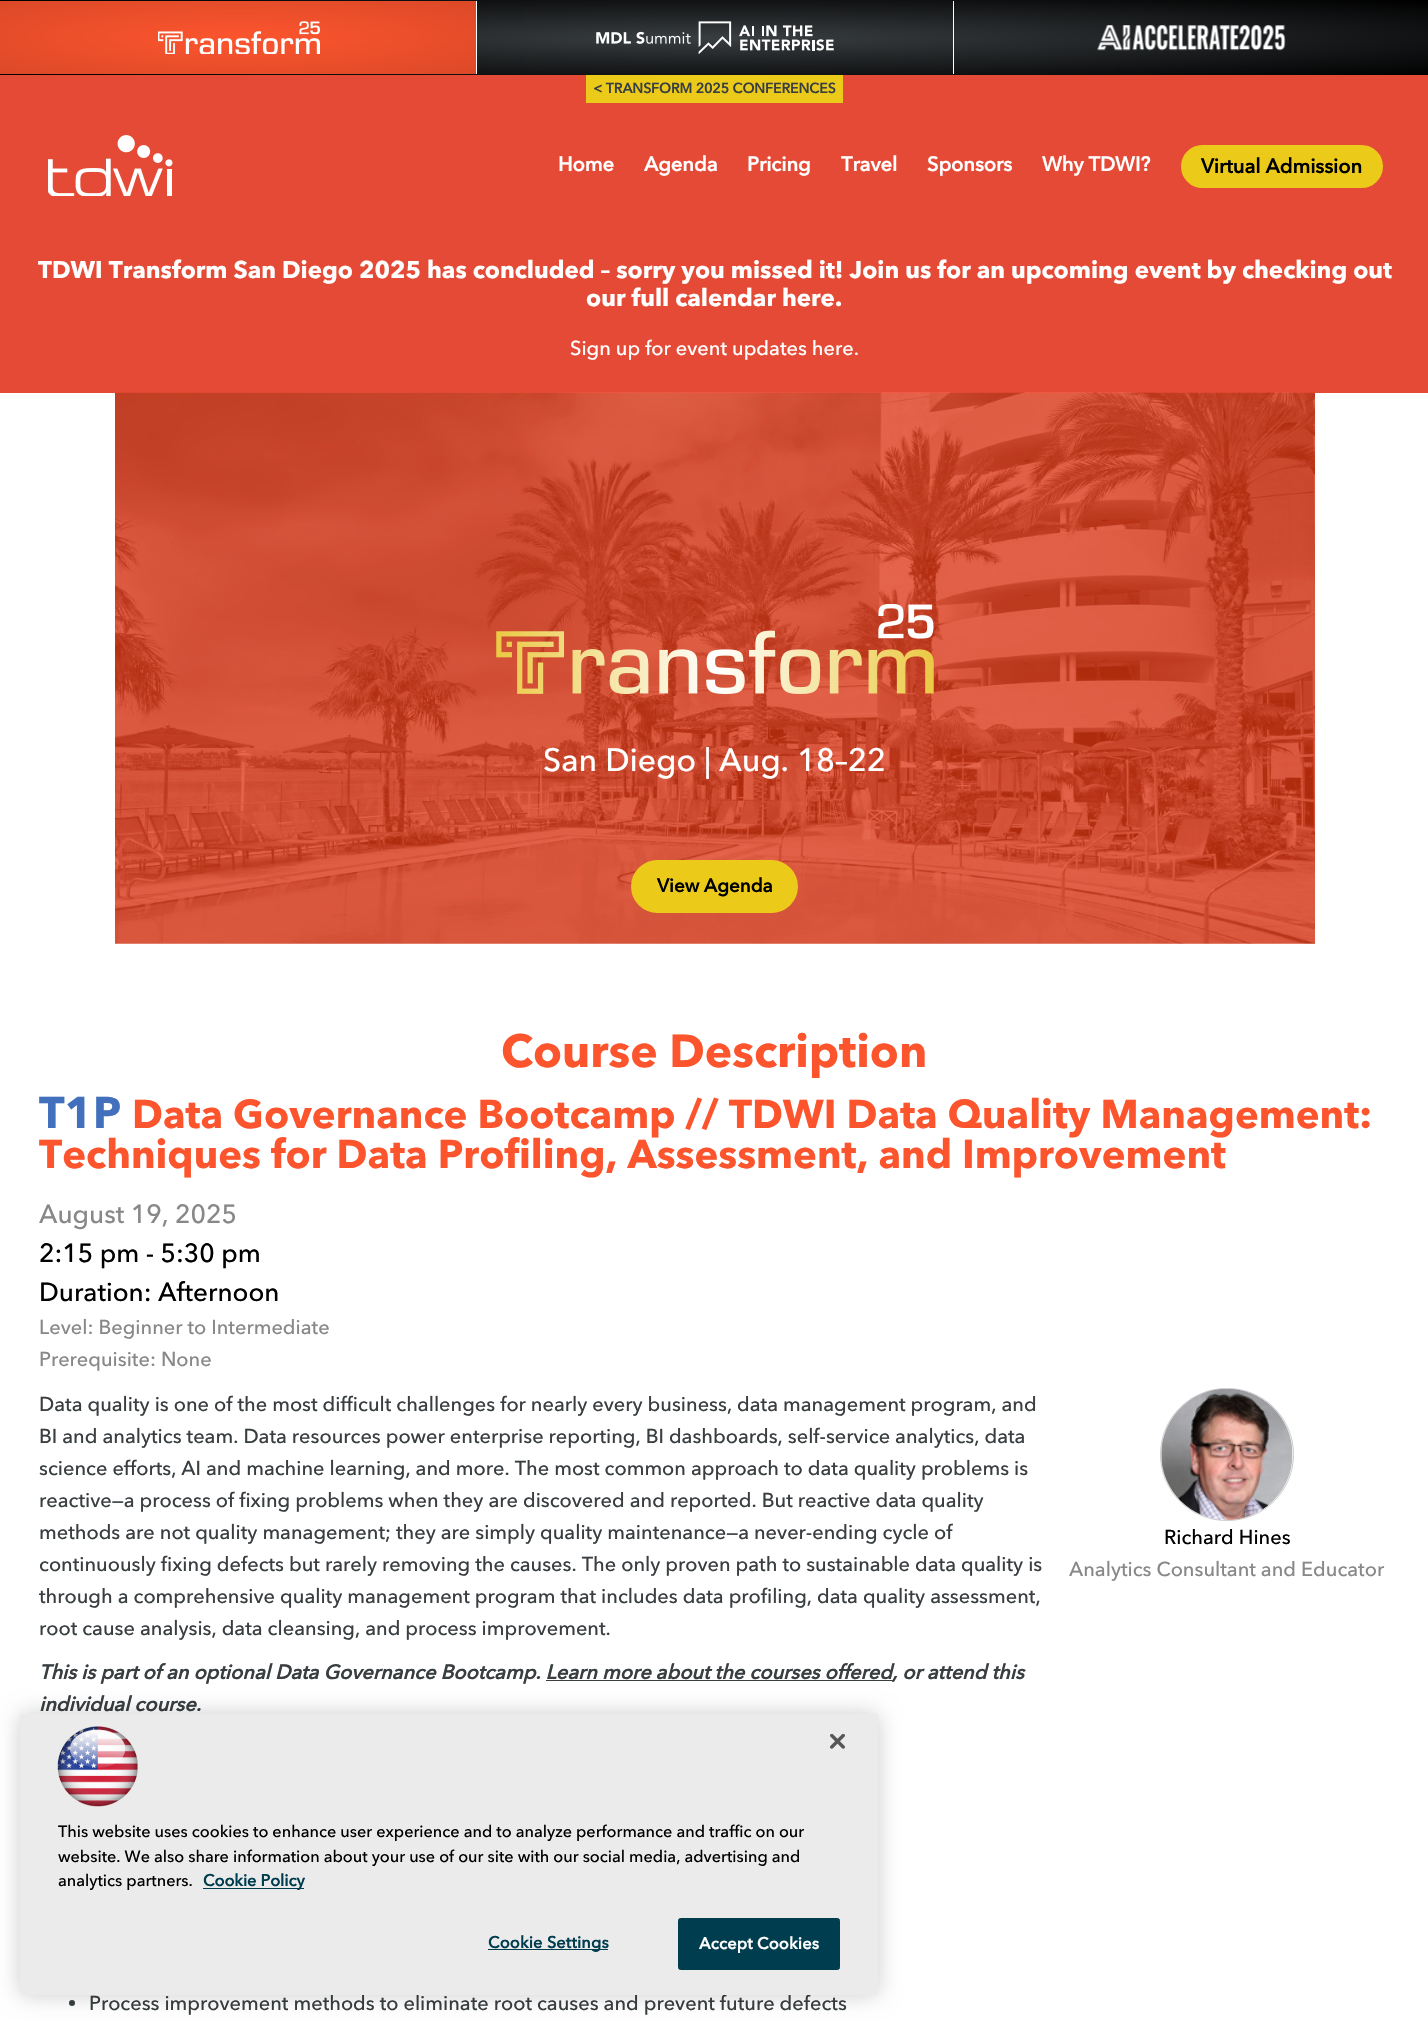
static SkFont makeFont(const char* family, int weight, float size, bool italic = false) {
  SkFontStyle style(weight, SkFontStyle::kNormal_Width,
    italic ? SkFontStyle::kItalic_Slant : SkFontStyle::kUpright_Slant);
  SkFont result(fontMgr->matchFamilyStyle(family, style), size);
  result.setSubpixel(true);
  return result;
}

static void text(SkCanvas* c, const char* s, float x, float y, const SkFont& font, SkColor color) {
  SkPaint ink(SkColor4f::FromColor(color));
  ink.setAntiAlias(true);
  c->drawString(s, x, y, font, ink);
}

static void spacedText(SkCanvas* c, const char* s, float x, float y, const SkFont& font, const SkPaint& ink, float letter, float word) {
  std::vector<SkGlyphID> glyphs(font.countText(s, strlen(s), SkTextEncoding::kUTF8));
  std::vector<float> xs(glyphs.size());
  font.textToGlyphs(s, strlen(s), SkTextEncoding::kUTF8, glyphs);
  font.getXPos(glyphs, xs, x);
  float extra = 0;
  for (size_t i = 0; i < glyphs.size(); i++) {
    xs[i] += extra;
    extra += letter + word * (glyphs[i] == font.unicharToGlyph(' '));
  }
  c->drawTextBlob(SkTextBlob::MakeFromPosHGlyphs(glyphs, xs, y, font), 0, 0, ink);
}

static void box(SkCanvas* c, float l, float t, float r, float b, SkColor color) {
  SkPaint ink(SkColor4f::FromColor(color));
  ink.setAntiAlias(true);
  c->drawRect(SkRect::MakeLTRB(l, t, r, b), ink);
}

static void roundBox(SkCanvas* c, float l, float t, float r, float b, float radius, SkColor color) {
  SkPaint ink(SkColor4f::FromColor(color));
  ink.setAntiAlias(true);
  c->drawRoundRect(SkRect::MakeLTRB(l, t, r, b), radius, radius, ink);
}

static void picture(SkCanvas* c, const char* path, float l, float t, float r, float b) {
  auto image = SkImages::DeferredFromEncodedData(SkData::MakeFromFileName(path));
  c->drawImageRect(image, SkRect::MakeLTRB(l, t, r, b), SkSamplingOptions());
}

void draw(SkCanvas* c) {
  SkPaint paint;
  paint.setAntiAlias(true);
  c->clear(0xffffffff);
  {
    const SkColor colors[] = {0xff393e41, 0xff000000};
    const float stops[] = {0, 1};
    SkMatrix m = SkMatrix::Translate(714, 38).preScale(1010, 53);
    paint.setShader(SkGradientShader::MakeRadial({0, 0}, 1, colors, stops, 2, SkTileMode::kClamp, 0, &m));
    paint.setAlpha(255);
  }
  c->drawRect(SkRect::MakeLTRB(0, 0, 1428, 75), paint);
  {
    const SkColor colors[] = {0xfffc552e, 0xffdc4928};
    const float stops[] = {0, 1};
    SkMatrix m = SkMatrix::Translate(238, 38).preScale(337, 51);
    paint.setShader(SkGradientShader::MakeRadial({0, 0}, 1, colors, stops, 2, SkTileMode::kClamp, 0, &m));
    paint.setAlpha(255);
  }
  c->drawRect(SkRect::MakeLTRB(0, 1, 476, 74), paint);
  picture(c, "img_01.png", 158, 21, 320, 54);
  picture(c, "img_02.png", 596, 21, 834, 54);
  box(c, 476, 1, 477, 74, 0xffffffff);
  picture(c, "img_03.png", 1097, 25, 1286, 51);
  box(c, 953, 1, 954, 74, 0xffffffff);
  box(c, 0, 75, 1428, 393, 0xffe44a35);
  box(c, 586, 75, 843, 103, 0xffecca1a);
  SkFont face1 = makeFont("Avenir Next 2", 700, 14);
  text(c, "< TRANSFORM 2025 CONFERENCES", 593, 93, face1, 0xff393e41);
  picture(c, "img_04.png", 48, 135, 173, 196);
  SkFont face2 = makeFont("Avenir Next 2", 700, 20);
  text(c, "Home", 558, 171, face2, 0xffffffff);
  text(c, "Agenda", 644, 171, face2, 0xffffffff);
  text(c, "Pricing", 747, 171, face2, 0xffffffff);
  text(c, "Travel", 841, 171, face2, 0xffffffff);
  text(c, "Sponsors", 927, 171, face2, 0xffffffff);
  text(c, "Why TDWI?", 1042, 171, face2, 0xffffffff);
  paint.setShader(nullptr);
  paint.setColor(0xffecca1a);
  c->drawRoundRect(SkRect::MakeLTRB(1182.5f, 146.5f, 1381.5f, 186.5f), 20, 20, paint);
  paint.setStyle(SkPaint::kStroke_Style);
  paint.setStrokeWidth(3);
  c->drawRoundRect(SkRect::MakeLTRB(1182.5f, 146.5f, 1381.5f, 186.5f), 20, 20, paint);
  text(c, "Virtual Admission", 1201, 173, face2, 0xff000000);
  SkFont face3 = makeFont("Avenir Next", 700, 24);
  text(c, "TDWI Transform San Diego 2025 has concluded – sorry you missed it! Join us for an upcoming event by checking out", 38, 278, face3, 0xffffffff);
  text(c, "our full calendar here.", 586, 306, face3, 0xffffffff);
  SkFont face4 = makeFont("Avenir Next", 500, 20);
  text(c, "Sign up for event updates here.", 570, 355, face4, 0xffffffff);
  picture(c, "img_05.png", 115, 392, 1315, 944);
  picture(c, "img_06.png", 496, 604, 934, 694);
  SkFont face5 = makeFont("Avenir Next", 500, 32);
  text(c, "San Diego | Aug. 18–22", 543, 771, face5, 0xffffffff);
  roundBox(c, 631, 860, 798, 913, 26.5f, 0xffecca1a);
  SkFont face6 = makeFont("Avenir Next 2", 700, 18.75f);
  text(c, "View Agenda", 657, 892, face6, 0xff000000);
  SkFont face7 = makeFont("Avenir Next", 700, 46);
  text(c, "Course Description", 501, 1067, face7, 0xfffc552e);
  SkFont face8 = makeFont("Avenir Next", 700, 44);
  text(c, "T1P", 39, 1128, face8, 0xff4270bd);
  SkFont face9 = makeFont("Avenir Next", 700, 40);
  text(c, "Data Governance Bootcamp // TDWI Data Quality Management:", 132, 1128, face9, 0xfffc552e);
  text(c, "Techniques for Data Profiling, Assessment, and Improvement", 39, 1168, face9, 0xfffc552e);
  SkFont face10 = makeFont("Avenir Next", 500, 26);
  text(c, "August 19, 2025", 39, 1223, face10, 0xff888888);
  text(c, "2:15 pm - 5:30 pm", 39, 1262, face10, 0xff000000);
  text(c, "Duration: Afternoon", 39, 1301, face10, 0xff000000);
  text(c, "Level: Beginner to Intermediate", 39, 1334, face4, 0xff888888);
  text(c, "Prerequisite: None", 39, 1366, face4, 0xff888888);
  text(c, "Data quality is one of the most difficult challenges for nearly every business, data management program, and", 39, 1411, face4, 0xff393e41);
  text(c, "BI and analytics team. Data resources power enterprise reporting, BI dashboards, self-service analytics, data", 39, 1443, face4, 0xff393e41);
  text(c, "science efforts, AI and machine learning, and more. The most common approach to data quality problems is", 39, 1475, face4, 0xff393e41);
  text(c, "reactive—a process of fixing problems when they are discovered and reported. But reactive data quality", 39, 1507, face4, 0xff393e41);
  text(c, "methods are not quality management; they are simply quality maintenance—a never-ending cycle of", 39, 1539, face4, 0xff393e41);
  text(c, "continuously fixing defects but rarely removing the causes. The only proven path to sustainable data quality is", 39, 1571, face4, 0xff393e41);
  text(c, "through a comprehensive quality management program that includes data profiling, data quality assessment,", 39, 1603, face4, 0xff393e41);
  text(c, "root cause analysis, data cleansing, and process improvement.", 39, 1635, face4, 0xff393e41);
  paint.setStrokeWidth(1);
  paint.setColor(0xffcccccc);
  c->drawRoundRect(SkRect::MakeLTRB(1160.5f, 1388.5f, 1293.5f, 1520.5f), 66, 66, paint);
  picture(c, "img_07.png", 1161, 1389, 1293, 1520);
  text(c, "Richard Hines", 1164, 1544, face4, 0xff000000);
  text(c, "Analytics Consultant and Educator", 1069, 1576, face4, 0xff888888);
  SkFont face11 = makeFont("Avenir Next", 700, 20, true);
  text(c, "This is part of an optional Data Governance Bootcamp. Learn more about the courses offered", 39, 1679, face11, 0xff393e41);
  box(c, 546, 1680, 893, 1681, 0xff393e41);
  text(c, ", or attend this", 892, 1679, face11, 0xff393e41);
  text(c, "individual course.", 39, 1711, face11, 0xff393e41);
  paint.setStyle(SkPaint::kFill_Style);
  paint.setColor(0xff393e41);
  c->drawCircle(72, 2003, 3, paint);
  text(c, "Process improvement methods to eliminate root causes and prevent future defects", 89, 2010, face4, 0xff393e41);
  paint.setColor(0x33000000);
  paint.setMaskFilter(SkMaskFilter::MakeBlur(kNormal_SkBlurStyle, 11));
  c->drawRoundRect(SkRect::MakeLTRB(20, 1714, 878, 1995), 3, 3, paint);
  paint.setMaskFilter(nullptr);
  roundBox(c, 20, 1714, 878, 1995, 3, 0xffebebeb);
  picture(c, "img_08.png", 830, 1734, 845, 1749);
  picture(c, "img_09.png", 57, 1726, 138, 1807);
  SkFont face12 = makeFont("Avenir Next", 500, 16.25f);
  text(c, "This website uses cookies to enhance user experience and to analyze performance and traffic on our", 58, 1837, face12, 0xff000000);
  text(c, "website. We also share information about your use of our site with our social media, advertising and", 58, 1862, face12, 0xff000000);
  text(c, "analytics partners.", 58, 1886, face12, 0xff000000);
  box(c, 203, 1888, 304, 1889, 0xff003d4f);
  SkFont face13 = makeFont("Avenir Next 2", 700, 16.25f);
  text(c, "Cookie Policy", 203, 1886, face13, 0xff003d4f);
  box(c, 488, 1949, 608, 1950, 0xff003d4f);
  paint.setColor(0xff003d4f);
  spacedText(c, "Cookie Settings", 488, 1948, face13, paint, 0.2f, 0);
  c->drawRoundRect(SkRect::MakeLTRB(678.5f, 1918.5f, 839.5f, 1969.5f), 2, 2, paint);
  paint.setStyle(SkPaint::kStroke_Style);
  c->drawRoundRect(SkRect::MakeLTRB(678.5f, 1918.5f, 839.5f, 1969.5f), 2, 2, paint);
  paint.setStyle(SkPaint::kFill_Style);
  paint.setColor(0xffffffff);
  spacedText(c, "Accept Cookies", 699, 1949, face13, paint, 0.2f, 0);
}
